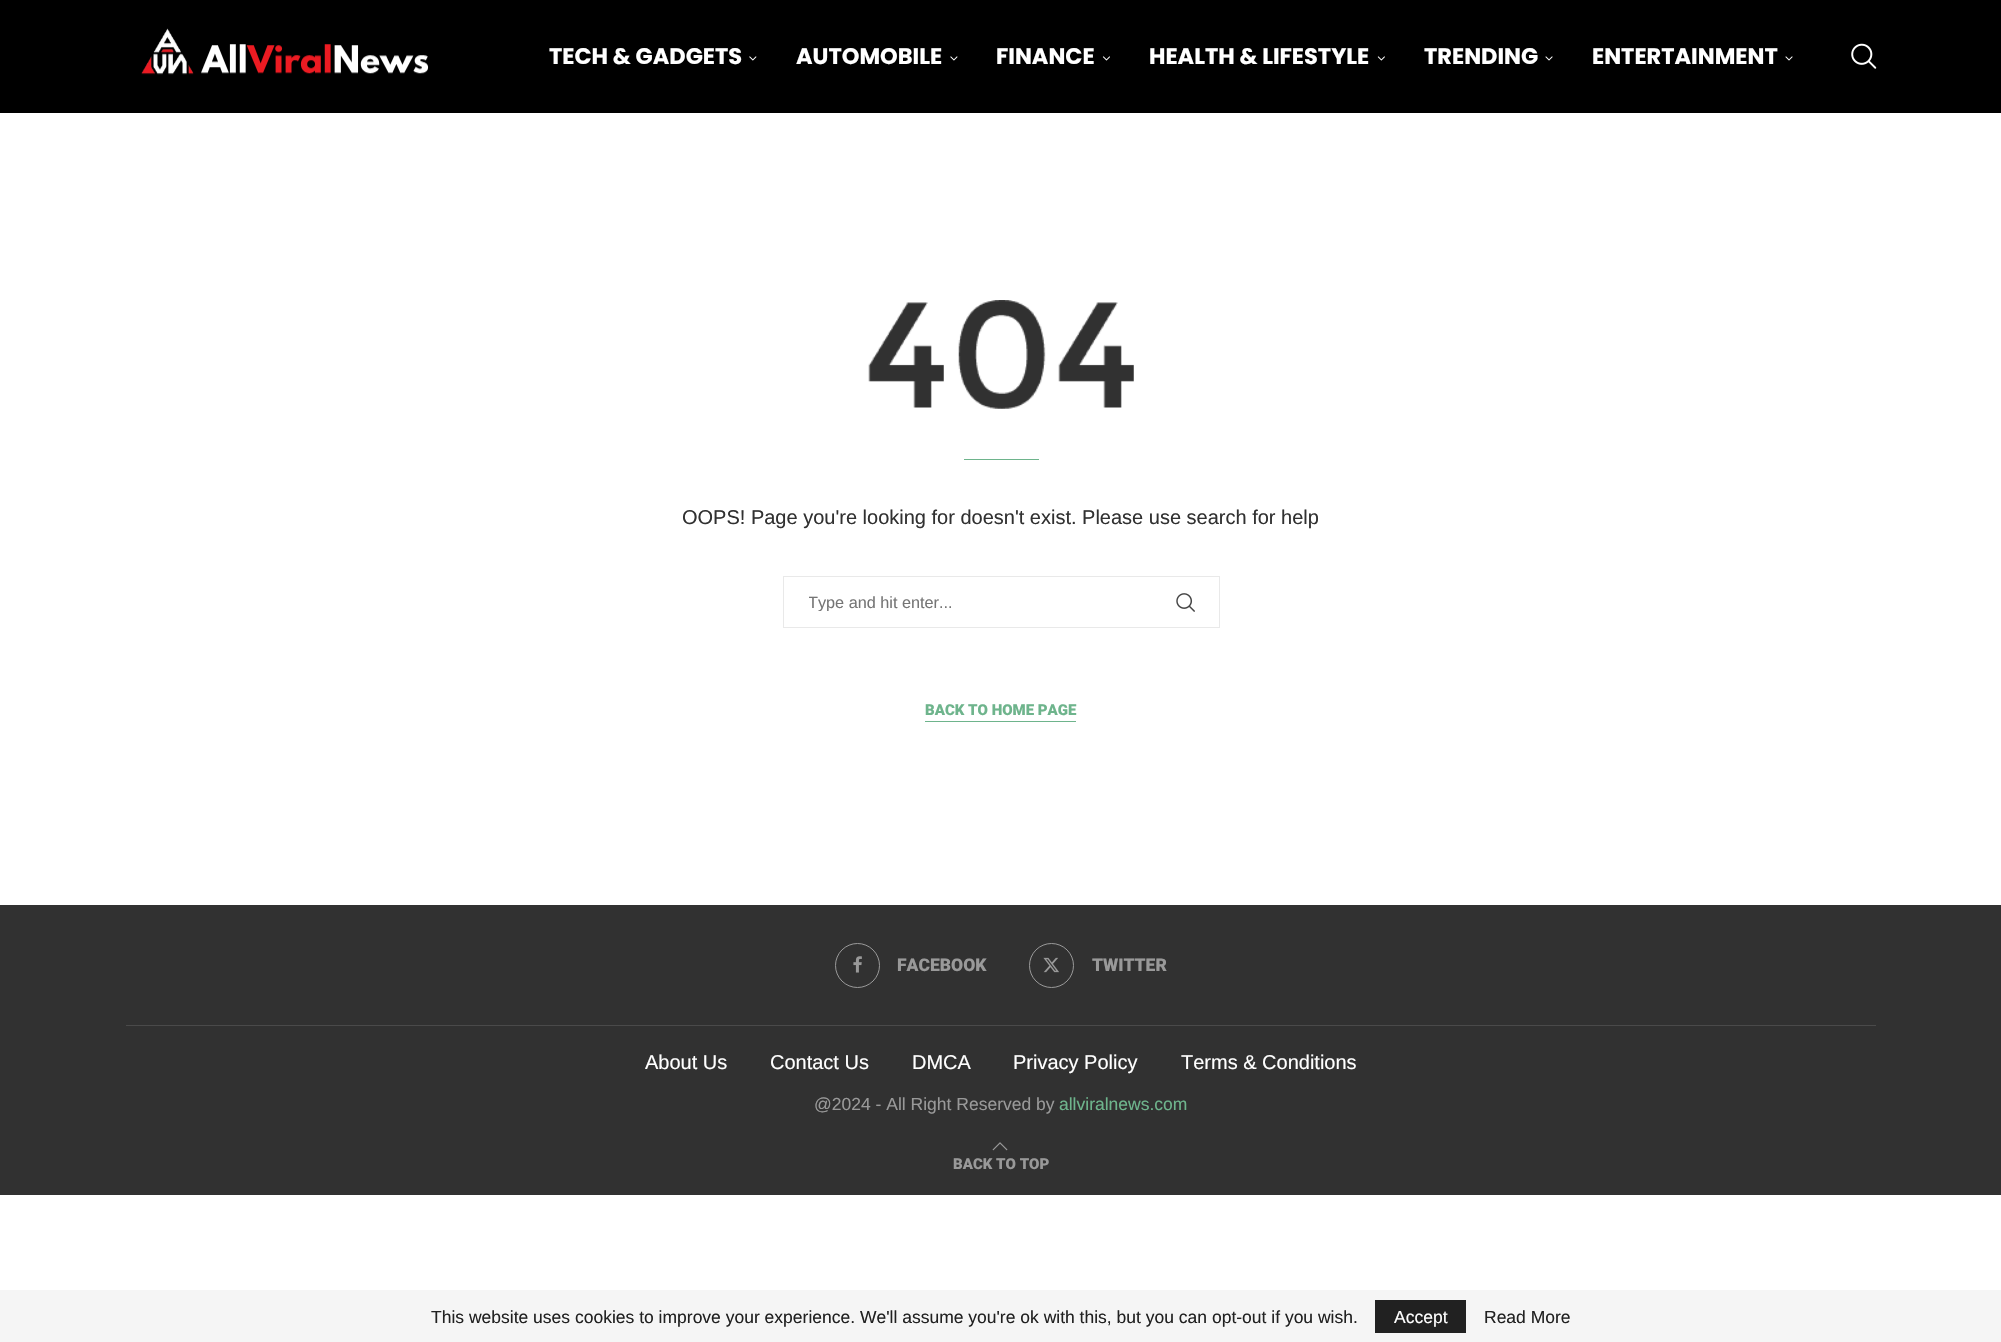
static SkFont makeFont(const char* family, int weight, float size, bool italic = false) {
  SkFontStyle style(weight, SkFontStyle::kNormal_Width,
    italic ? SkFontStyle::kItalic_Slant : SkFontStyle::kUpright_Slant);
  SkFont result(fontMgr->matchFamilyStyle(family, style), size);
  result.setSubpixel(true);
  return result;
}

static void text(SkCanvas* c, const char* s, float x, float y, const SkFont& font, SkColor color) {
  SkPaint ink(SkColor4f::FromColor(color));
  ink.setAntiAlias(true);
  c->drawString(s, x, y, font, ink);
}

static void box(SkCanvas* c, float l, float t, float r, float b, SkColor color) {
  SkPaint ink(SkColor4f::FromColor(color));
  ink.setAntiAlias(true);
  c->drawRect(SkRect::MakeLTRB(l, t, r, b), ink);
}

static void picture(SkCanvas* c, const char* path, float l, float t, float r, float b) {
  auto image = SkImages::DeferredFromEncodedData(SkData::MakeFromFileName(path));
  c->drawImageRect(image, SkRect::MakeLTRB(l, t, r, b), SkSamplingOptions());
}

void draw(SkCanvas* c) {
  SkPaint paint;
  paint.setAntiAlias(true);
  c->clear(0xffffffff);
  box(c, 0, 0, 2001, 113, 0xff000000);
  picture(c, "img_01.png", 141, 28, 429, 75);
  SkFont face1 = makeFont("Poppins", 700, 22.5f);
  text(c, "TECH & GADGETS", 549, 64, face1, 0xffffffff);
  picture(c, "img_02.png", 749, 56, 757, 61);
  text(c, "AUTOMOBILE", 796, 64, face1, 0xffffffff);
  picture(c, "img_03.png", 950, 56, 958, 61);
  text(c, "FINANCE", 996, 64, face1, 0xffffffff);
  picture(c, "img_04.png", 1102, 56, 1110, 61);
  text(c, "HEALTH & LIFESTYLE", 1149, 64, face1, 0xffffffff);
  picture(c, "img_05.png", 1377, 56, 1385, 61);
  text(c, "TRENDING", 1424, 64, face1, 0xffffffff);
  picture(c, "img_06.png", 1545, 56, 1553, 61);
  text(c, "ENTERTAINMENT", 1592, 64, face1, 0xffffffff);
  picture(c, "img_07.png", 1785, 56, 1793, 61);
  picture(c, "img_08.png", 1851, 43, 1877, 69);
  picture(c, "img_09.png", 868, 300, 1134, 409);
  box(c, 964, 459, 1039, 460, 0xff6eb48c);
  SkFont face2 = makeFont("Liberation Sans", 400, 20);
  text(c, "OOPS! Page you're looking for doesn't exist. Please use search for help", 682, 524, face2, 0xff313131);
  paint.setStyle(SkPaint::kStroke_Style);
  paint.setStrokeWidth(1);
  paint.setColor(0xffe9e9e9);
  c->drawRect(SkRect::MakeLTRB(783.5f, 576.5f, 1219.5f, 627.5f), paint);
  c->save();
  c->clipRect(SkRect::MakeLTRB(809, 593, 1169, 611));
  SkFont face3 = makeFont("Liberation Sans", 400, 16.25f);
  text(c, "Type and hit enter...", 808, 608, face3, 0xff757575);
  c->restore();
  picture(c, "img_10.png", 1176, 593, 1195, 612);
  SkFont face4 = makeFont("Roboto", 900, 15);
  text(c, "BACK TO HOME PAGE", 925, 715, face4, 0xff6eb48c);
  box(c, 925, 721, 1076, 722, 0xff6eb48c);
  box(c, 0, 905, 2001, 1195, 0xff313131);
  box(c, 126, 1025, 1876, 1026, 0xff4a4a4a);
  paint.setColor(0xff999999);
  c->drawCircle(857.5f, 965.5f, 22, paint);
  picture(c, "img_11.png", 853, 956, 862, 973);
  SkFont face5 = makeFont("Roboto", 900, 17.5f);
  text(c, "FACEBOOK", 897, 971, face5, 0xff999999);
  c->drawCircle(1051.5f, 965.5f, 22, paint);
  picture(c, "img_12.png", 1043, 957, 1059, 973);
  text(c, "TWITTER", 1092, 971, face5, 0xff999999);
  text(c, "About Us", 645, 1069, face2, 0xffffffff);
  text(c, "Contact Us", 770, 1069, face2, 0xffffffff);
  text(c, "DMCA", 912, 1069, face2, 0xffffffff);
  text(c, "Privacy Policy", 1013, 1069, face2, 0xffffffff);
  text(c, "Terms & Conditions", 1181, 1069, face2, 0xffffffff);
  SkFont face6 = makeFont("Liberation Sans", 400, 17.5f);
  text(c, "@2024 - All Right Reserved by", 814, 1110, face6, 0xff999999);
  text(c, "allviralnews.com", 1059, 1110, face6, 0xff6eb48c);
  picture(c, "img_13.png", 992, 1142, 1008, 1151);
  text(c, "BACK TO TOP", 953, 1169, face4, 0xff999999);
  box(c, 0, 1290, 2001, 1342, 0xfff5f5f5);
  text(c, "This website uses cookies to improve your experience. We'll assume you're ok with this, but you can opt-out if you wish.", 431, 1323, face6, 0xff212121);
  box(c, 1375, 1300, 1466, 1333, 0xff212121);
  text(c, "Accept", 1394, 1323, face6, 0xffffffff);
  text(c, "Read More", 1484, 1323, face6, 0xff212121);
}
